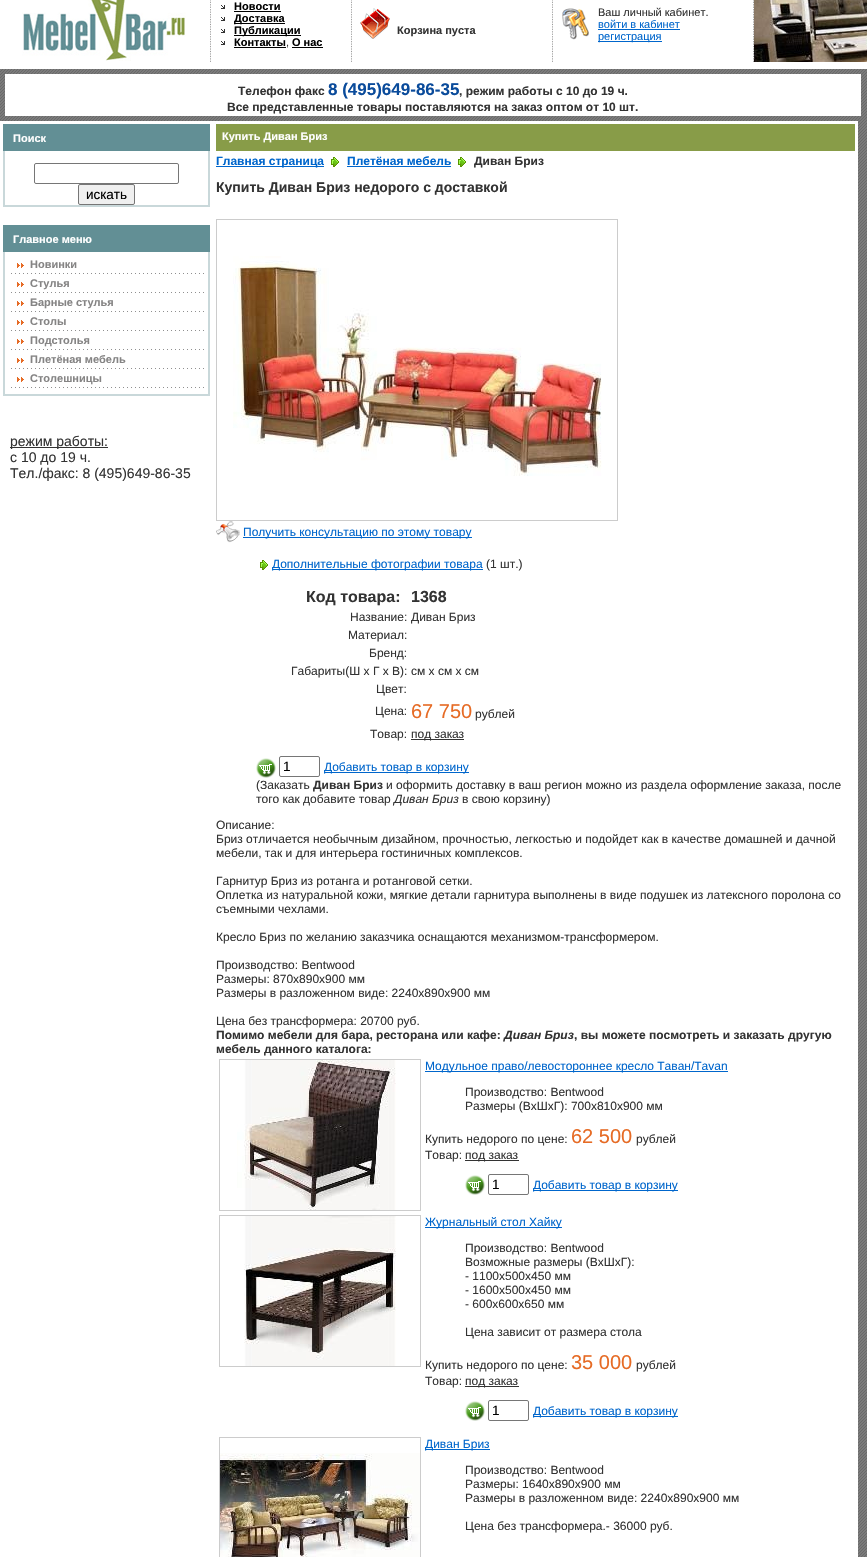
static SkFont makeFont(const char* family, int weight, float size, bool italic = false) {
  SkFontStyle style(weight, SkFontStyle::kNormal_Width,
    italic ? SkFontStyle::kItalic_Slant : SkFontStyle::kUpright_Slant);
  SkFont result(fontMgr->matchFamilyStyle(family, style), size);
  result.setSubpixel(true);
  return result;
}

static void text(SkCanvas* c, const char* s, float x, float y, const SkFont& font, SkColor color) {
  SkPaint ink(SkColor4f::FromColor(color));
  ink.setAntiAlias(true);
  c->drawString(s, x, y, font, ink);
}

static void box(SkCanvas* c, float l, float t, float r, float b, SkColor color) {
  SkPaint ink(SkColor4f::FromColor(color));
  ink.setAntiAlias(true);
  c->drawRect(SkRect::MakeLTRB(l, t, r, b), ink);
}

static void picture(SkCanvas* c, const char* path, float l, float t, float r, float b) {
  auto image = SkImages::DeferredFromEncodedData(SkData::MakeFromFileName(path));
  c->drawImageRect(image, SkRect::MakeLTRB(l, t, r, b), SkSamplingOptions());
}

void draw(SkCanvas* c) {
  SkPaint paint;
  paint.setAntiAlias(true);
  c->clear(0xffffffff);
  picture(c, "img_01.png", 0, 69, 867, 1557);
  picture(c, "img_02.png", 22, 0, 186, 61);
  picture(c, "img_03.png", 210, 0, 211, 62);
  picture(c, "img_04.png", 221, 5, 225, 9);
  SkFont face1 = makeFont("Liberation Sans", 700, 11);
  text(c, "Новости", 234, 10, face1, 0xff000000);
  box(c, 234, 11, 281, 12, 0xff000000);
  picture(c, "img_04.png", 221, 17, 225, 21);
  box(c, 234, 23, 285, 24, 0xff000000);
  text(c, "Доставка", 234, 22, face1, 0xff000000);
  picture(c, "img_04.png", 221, 29, 225, 33);
  box(c, 234, 35, 301, 36, 0xff000000);
  text(c, "Публикации", 234, 34, face1, 0xff000000);
  picture(c, "img_04.png", 221, 41, 225, 45);
  text(c, "Контакты", 234, 46, face1, 0xff000000);
  box(c, 234, 47, 286, 48, 0xff000000);
  text(c, "О нас", 292, 46, face1, 0xff000000);
  box(c, 292, 47, 323, 48, 0xff000000);
  SkFont face2 = makeFont("Liberation Sans", 400, 11);
  text(c, ",", 286, 46, face2, 0xff333333);
  picture(c, "img_03.png", 351, 0, 352, 62);
  picture(c, "img_05.png", 360, 8, 390, 39);
  text(c, "Корзина пуста", 397, 34, face1, 0xff333333);
  picture(c, "img_03.png", 552, 0, 553, 62);
  picture(c, "img_06.png", 562, 8, 589, 40);
  text(c, "Ваш личный кабинет.", 598, 16, face2, 0xff333333);
  text(c, "войти в кабинет", 598, 28, face2, 0xff0066cc);
  box(c, 598, 29, 680, 30, 0xff0066cc);
  box(c, 598, 41, 662, 42, 0xff0066cc);
  text(c, "регистрация", 598, 40, face2, 0xff0066cc);
  picture(c, "img_03.png", 753, 0, 754, 62);
  picture(c, "img_07.png", 754, 0, 867, 62);
  box(c, 5, 74, 861, 116, 0xffffffff);
  SkFont face3 = makeFont("Liberation Sans", 700, 12);
  text(c, "Телефон факс", 238, 95, face3, 0xff333333);
  SkFont face4 = makeFont("Liberation Sans", 700, 17);
  text(c, "8 (495)649-86-35", 328, 95, face4, 0xff0a4b9b);
  text(c, ", режим работы с 10 до 19 ч.", 459, 95, face3, 0xff333333);
  text(c, "Все представленные товары поставляются на заказ оптом от 10 шт.", 227, 111, face3, 0xff333333);
  box(c, 0, 121, 858, 1557, 0xffffffff);
  box(c, 3, 124, 210, 151, 0xff628f95);
  text(c, "Поиск", 13, 142, face1, 0xffffffff);
  box(c, 208, 151, 210, 207, 0xffc9d8da);
  box(c, 3, 205, 210, 207, 0xffc9d8da);
  box(c, 3, 151, 5, 207, 0xffc9d8da);
  paint.setStyle(SkPaint::kStroke_Style);
  paint.setStrokeWidth(1);
  paint.setColor(0xff767676);
  c->drawRoundRect(SkRect::MakeLTRB(34.5f, 163.5f, 178.5f, 183.5f), 1.5f, 1.5f, paint);
  paint.setStyle(SkPaint::kFill_Style);
  paint.setColor(0xffefefef);
  c->drawRoundRect(SkRect::MakeLTRB(78.5f, 184.5f, 134.5f, 204.5f), 1.5f, 1.5f, paint);
  paint.setStyle(SkPaint::kStroke_Style);
  paint.setColor(0xff767676);
  c->drawRoundRect(SkRect::MakeLTRB(78.5f, 184.5f, 134.5f, 204.5f), 1.5f, 1.5f, paint);
  SkFont face5 = makeFont("Liberation Sans", 400, 13.5f);
  text(c, "искать", 86, 199, face5, 0xff000000);
  box(c, 3, 225, 210, 252, 0xff628f95);
  text(c, "Главное меню", 13, 243, face1, 0xffffffff);
  box(c, 208, 252, 210, 396, 0xffc9d8da);
  box(c, 3, 394, 210, 396, 0xffc9d8da);
  box(c, 3, 252, 5, 396, 0xffc9d8da);
  picture(c, "img_08.png", 17, 263, 24, 268);
  text(c, "Новинки", 30, 268, face1, 0xff858484);
  picture(c, "img_09.png", 11, 273, 204, 274);
  picture(c, "img_08.png", 17, 282, 24, 287);
  text(c, "Стулья", 30, 287, face1, 0xff858484);
  picture(c, "img_09.png", 11, 292, 204, 293);
  picture(c, "img_08.png", 17, 301, 24, 306);
  text(c, "Барные стулья", 30, 306, face1, 0xff858484);
  picture(c, "img_09.png", 11, 311, 204, 312);
  picture(c, "img_08.png", 17, 320, 24, 325);
  text(c, "Столы", 30, 325, face1, 0xff858484);
  picture(c, "img_09.png", 11, 330, 204, 331);
  picture(c, "img_08.png", 17, 339, 24, 344);
  text(c, "Подстолья", 30, 344, face1, 0xff858484);
  picture(c, "img_09.png", 11, 349, 204, 350);
  picture(c, "img_08.png", 17, 358, 24, 363);
  text(c, "Плетёная мебель", 30, 363, face1, 0xff858484);
  picture(c, "img_09.png", 11, 368, 204, 369);
  picture(c, "img_08.png", 17, 377, 24, 382);
  text(c, "Столешницы", 30, 382, face1, 0xff858484);
  picture(c, "img_09.png", 11, 387, 204, 388);
  box(c, 10, 447, 108, 448, 0xff333333);
  SkFont face6 = makeFont("Liberation Sans", 400, 14);
  text(c, "режим работы:", 10, 446, face6, 0xff333333);
  text(c, "с 10 до 19 ч.", 10, 462, face6, 0xff333333);
  text(c, "Тел./факс: 8 (495)649-86-35", 10, 478, face6, 0xff333333);
  box(c, 216, 124, 855, 151, 0xff889c48);
  text(c, "Купить Диван Бриз", 222, 140, face1, 0xffffffff);
  box(c, 216, 166, 324, 167, 0xff0066cc);
  text(c, "Главная страница", 216, 165, face3, 0xff0066cc);
  picture(c, "img_10.png", 331, 157, 339, 167);
  text(c, "Плетёная мебель", 347, 165, face3, 0xff0066cc);
  box(c, 347, 166, 451, 167, 0xff0066cc);
  picture(c, "img_10.png", 458, 157, 466, 167);
  text(c, "Диван Бриз", 474, 165, face3, 0xff333333);
  SkFont face7 = makeFont("Liberation Sans", 700, 14);
  text(c, "Купить Диван Бриз недорого с доставкой", 216, 192, face7, 0xff333333);
  paint.setColor(0xffcccccc);
  c->drawRect(SkRect::MakeLTRB(216.5f, 219.5f, 617.5f, 520.5f), paint);
  picture(c, "img_11.png", 233, 256, 602, 476);
  picture(c, "img_12.png", 216, 521, 240, 543);
  box(c, 243, 537, 472, 538, 0xff0066cc);
  SkFont face8 = makeFont("Liberation Sans", 400, 12);
  text(c, "Получить консультацию по этому товару", 243, 536, face8, 0xff0066cc);
  picture(c, "img_10.png", 260, 560, 268, 570);
  box(c, 272, 569, 483, 570, 0xff0066cc);
  text(c, "Дополнительные фотографии товара", 272, 568, face8, 0xff0066cc);
  text(c, "(1 шт.)", 486, 568, face8, 0xff333333);
  SkFont face9 = makeFont("Liberation Sans", 700, 16);
  text(c, "Код товара:", 306, 602, face9, 0xff333333);
  text(c, "1368", 411, 602, face9, 0xff333333);
  text(c, "Название:", 350, 621, face8, 0xff333333);
  text(c, "Диван Бриз", 411, 621, face8, 0xff333333);
  text(c, "Материал:", 348, 639, face8, 0xff333333);
  text(c, "Бренд:", 369, 657, face8, 0xff333333);
  text(c, "Габариты(Ш х Г х В):", 291, 675, face8, 0xff333333);
  text(c, "см х см х см", 411, 675, face8, 0xff333333);
  text(c, "Цвет:", 376, 693, face8, 0xff333333);
  text(c, "Цена:", 375, 715, face8, 0xff333333);
  SkFont face10 = makeFont("Liberation Sans", 400, 20);
  text(c, "67 750", 411, 718, face10, 0xffe66b25);
  text(c, "рублей", 475, 718, face8, 0xff333333);
  text(c, "Товар:", 370, 738, face8, 0xff333333);
  box(c, 411, 739, 464, 740, 0xff333333);
  text(c, "под заказ", 411, 738, face8, 0xff333333);
  picture(c, "img_13.png", 256, 758, 276, 778);
  paint.setColor(0xff767676);
  c->drawRoundRect(SkRect::MakeLTRB(279.5f, 756.5f, 319.5f, 776.5f), 1.5f, 1.5f, paint);
  text(c, "1", 283, 771, face5, 0xff000000);
  box(c, 324, 772, 469, 773, 0xff0066cc);
  text(c, "Добавить товар в корзину", 324, 771, face8, 0xff0066cc);
  text(c, "(Заказать", 256, 789, face8, 0xff333333);
  text(c, "Диван Бриз", 313, 789, face3, 0xff333333);
  text(c, "и оформить доставку в ваш регион можно из раздела оформление заказа, после", 386, 789, face8, 0xff333333);
  text(c, "того как добавите товар", 256, 803, face8, 0xff333333);
  SkFont face11 = makeFont("Liberation Sans", 400, 12, true);
  text(c, "Диван Бриз", 394, 803, face11, 0xff333333);
  text(c, "в свою корзину)", 462, 803, face8, 0xff333333);
  text(c, "Описание:", 216, 829, face8, 0xff333333);
  text(c, "Бриз отличается необычным дизайном, прочностью, легкостью и подойдет как в качестве домашней и дачной", 216, 843, face8, 0xff333333);
  text(c, "мебели, так и для интерьера гостиничных комплексов.", 216, 857, face8, 0xff333333);
  text(c, "Гарнитур Бриз из ротанга и ротанговой сетки.", 216, 885, face8, 0xff333333);
  text(c, "Оплетка из натуральной кожи, мягкие детали гарнитура выполнены в виде подушек из латексного поролона со", 216, 899, face8, 0xff333333);
  text(c, "съемными чехлами.", 216, 913, face8, 0xff333333);
  text(c, "Кресло Бриз по желанию заказчика оснащаются механизмом-трансформером.", 216, 941, face8, 0xff333333);
  text(c, "Производство: Bentwood", 216, 969, face8, 0xff333333);
  text(c, "Размеры: 870х890x900 мм", 216, 983, face8, 0xff333333);
  text(c, "Размеры в разложенном виде: 2240x890x900 мм", 216, 997, face8, 0xff333333);
  text(c, "Цена без трансформера: 20700 руб.", 216, 1025, face8, 0xff333333);
  text(c, "Помимо мебели для бара, ресторана или кафе:", 216, 1039, face3, 0xff333333);
  SkFont face12 = makeFont("Liberation Sans", 700, 12, true);
  text(c, "Диван Бриз", 504, 1039, face12, 0xff333333);
  text(c, ", вы можете посмотреть и заказать другую", 574, 1039, face3, 0xff333333);
  text(c, "мебель данного каталога:", 216, 1053, face3, 0xff333333);
  paint.setColor(0xffcccccc);
  c->drawRect(SkRect::MakeLTRB(219.5f, 1059.5f, 420.5f, 1210.5f), paint);
  picture(c, "img_14.png", 237, 1060, 396, 1210);
  box(c, 425, 1071, 728, 1072, 0xff0066cc);
  text(c, "Модульное право/левостороннее кресло Таван/Tavan", 425, 1070, face8, 0xff0066cc);
  text(c, "Производство: Bentwood", 465, 1096, face8, 0xff333333);
  text(c, "Размеры (ВхШхГ): 700x810x900 мм", 465, 1110, face8, 0xff333333);
  text(c, "Купить недорого по цене:", 425, 1143, face8, 0xff333333);
  text(c, "62 500", 571, 1143, face10, 0xffe66b25);
  text(c, "рублей", 636, 1143, face8, 0xff333333);
  text(c, "Товар:", 425, 1159, face8, 0xff333333);
  box(c, 465, 1160, 519, 1161, 0xff333333);
  text(c, "под заказ", 465, 1159, face8, 0xff333333);
  picture(c, "img_13.png", 465, 1175, 485, 1195);
  paint.setColor(0xff767676);
  c->drawRoundRect(SkRect::MakeLTRB(488.5f, 1174.5f, 528.5f, 1194.5f), 1.5f, 1.5f, paint);
  text(c, "1", 492, 1189, face5, 0xff000000);
  box(c, 533, 1190, 678, 1191, 0xff0066cc);
  text(c, "Добавить товар в корзину", 533, 1189, face8, 0xff0066cc);
  paint.setColor(0xffcccccc);
  c->drawRect(SkRect::MakeLTRB(219.5f, 1215.5f, 420.5f, 1366.5f), paint);
  picture(c, "img_15.png", 244, 1216, 396, 1366);
  box(c, 425, 1227, 562, 1228, 0xff0066cc);
  text(c, "Журнальный стол Хайку", 425, 1226, face8, 0xff0066cc);
  text(c, "Производство: Bentwood", 465, 1252, face8, 0xff333333);
  text(c, "Возможные размеры (ВхШхГ):", 465, 1266, face8, 0xff333333);
  text(c, "- 1100x500x450 мм", 465, 1280, face8, 0xff333333);
  text(c, "- 1600x500x450 мм", 465, 1294, face8, 0xff333333);
  text(c, "- 600x600x650 мм", 465, 1308, face8, 0xff333333);
  text(c, "Цена зависит от размера стола", 465, 1336, face8, 0xff333333);
  text(c, "Купить недорого по цене:", 425, 1369, face8, 0xff333333);
  text(c, "35 000", 571, 1369, face10, 0xffe66b25);
  text(c, "рублей", 636, 1369, face8, 0xff333333);
  text(c, "Товар:", 425, 1385, face8, 0xff333333);
  box(c, 465, 1386, 519, 1387, 0xff333333);
  text(c, "под заказ", 465, 1385, face8, 0xff333333);
  picture(c, "img_13.png", 465, 1401, 485, 1421);
  paint.setColor(0xff767676);
  c->drawRoundRect(SkRect::MakeLTRB(488.5f, 1400.5f, 528.5f, 1420.5f), 1.5f, 1.5f, paint);
  text(c, "1", 492, 1415, face5, 0xff000000);
  box(c, 533, 1416, 678, 1417, 0xff0066cc);
  text(c, "Добавить товар в корзину", 533, 1415, face8, 0xff0066cc);
  paint.setColor(0xffcccccc);
  c->drawRect(SkRect::MakeLTRB(219.5f, 1437.5f, 420.5f, 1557.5f), paint);
  picture(c, "img_16.png", 220, 1453, 420, 1557);
  box(c, 425, 1449, 490, 1450, 0xff0066cc);
  text(c, "Диван Бриз", 425, 1448, face8, 0xff0066cc);
  text(c, "Производство: Bentwood", 465, 1474, face8, 0xff333333);
  text(c, "Размеры: 1640x890x900 мм", 465, 1488, face8, 0xff333333);
  text(c, "Размеры в разложенном виде: 2240x890x900 мм", 465, 1502, face8, 0xff333333);
  text(c, "Цена без трансформера.- 36000 руб.", 465, 1530, face8, 0xff333333);
}
